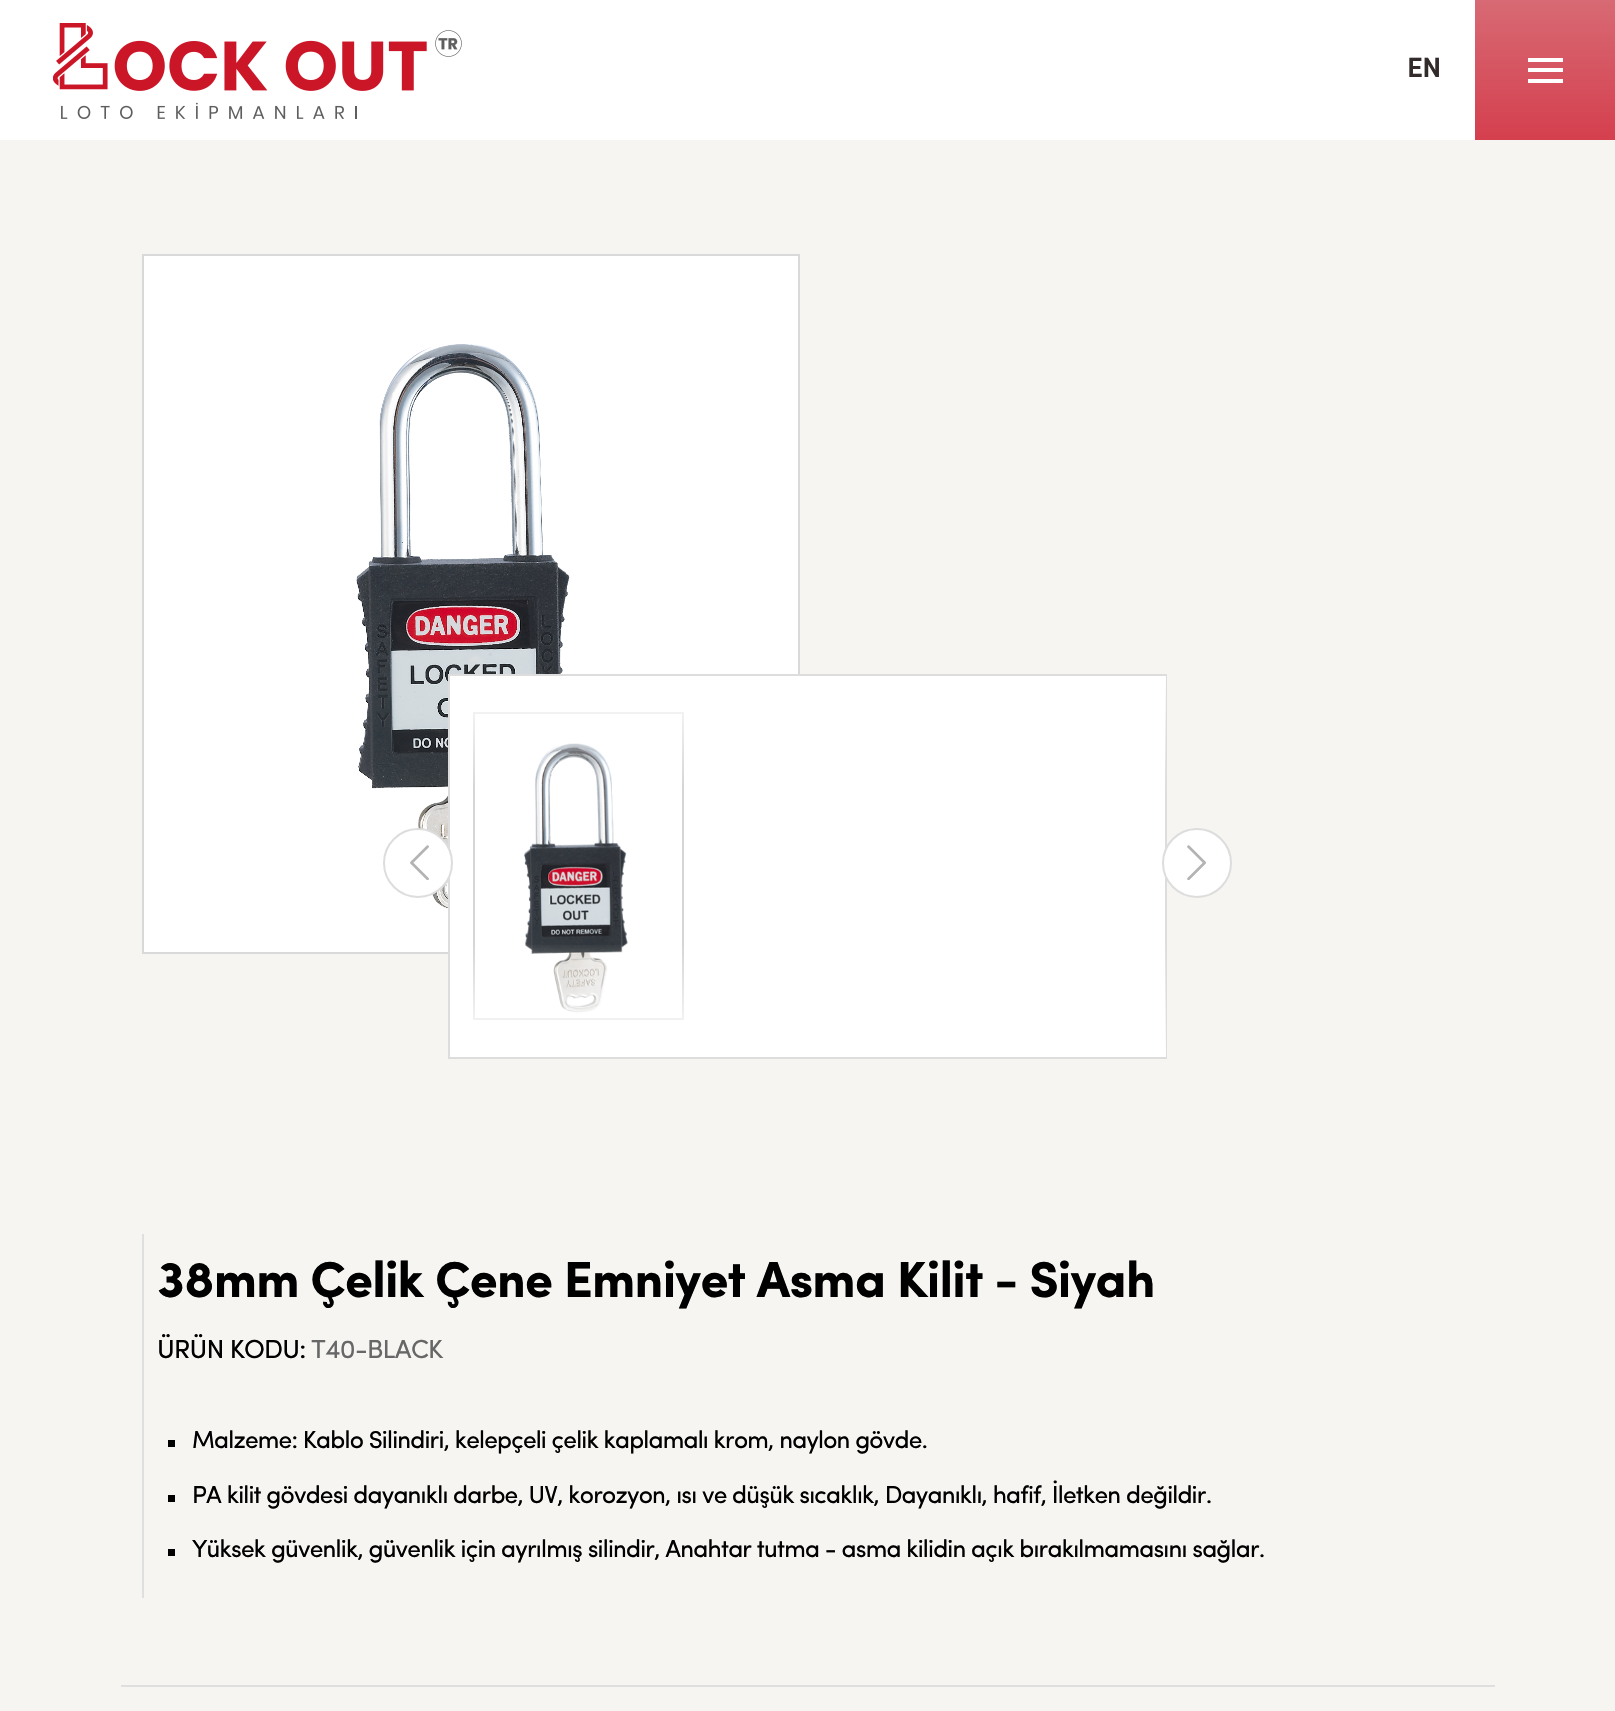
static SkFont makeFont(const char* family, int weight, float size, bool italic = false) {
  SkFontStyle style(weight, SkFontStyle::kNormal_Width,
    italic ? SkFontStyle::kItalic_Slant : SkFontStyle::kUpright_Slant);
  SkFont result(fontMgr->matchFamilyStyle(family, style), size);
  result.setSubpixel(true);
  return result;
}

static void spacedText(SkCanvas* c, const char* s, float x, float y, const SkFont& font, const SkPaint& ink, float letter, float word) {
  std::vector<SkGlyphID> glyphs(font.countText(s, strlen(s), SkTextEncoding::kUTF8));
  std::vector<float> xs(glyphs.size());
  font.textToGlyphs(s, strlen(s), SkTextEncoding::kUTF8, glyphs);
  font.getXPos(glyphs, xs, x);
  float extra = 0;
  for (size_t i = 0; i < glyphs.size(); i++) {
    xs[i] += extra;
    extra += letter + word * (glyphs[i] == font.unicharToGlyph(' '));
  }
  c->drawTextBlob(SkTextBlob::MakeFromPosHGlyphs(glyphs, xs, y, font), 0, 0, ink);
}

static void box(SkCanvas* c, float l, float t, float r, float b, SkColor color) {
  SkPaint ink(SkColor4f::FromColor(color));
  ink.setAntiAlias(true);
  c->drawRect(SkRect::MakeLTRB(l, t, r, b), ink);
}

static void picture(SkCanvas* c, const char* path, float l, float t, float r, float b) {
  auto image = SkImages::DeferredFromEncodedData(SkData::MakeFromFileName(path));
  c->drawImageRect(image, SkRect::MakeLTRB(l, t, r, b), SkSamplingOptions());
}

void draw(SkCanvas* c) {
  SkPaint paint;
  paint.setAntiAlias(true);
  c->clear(0xffffffff);
  picture(c, "img_01.png", 53, 23, 462, 119);
  SkFont face1 = makeFont("Sofia", 600, 28);
  paint.setColor(0xff332b2b);
  spacedText(c, "EN", 1407, 77, face1, paint, -0.79f, 0);
  {
    const SkColor colors[] = {0xffd53f4e, 0xffd76a74};
    const float stops[] = {0, 1};
    const SkPoint ends[] = {{1545, 140}, {1545, 0}};
    paint.setShader(SkGradientShader::MakeLinear(ends, colors, stops, 2, SkTileMode::kClamp));
    paint.setAlpha(255);
  }
  c->drawRect(SkRect::MakeLTRB(1475, 0, 1615, 140), paint);
  box(c, 1528, 58, 1563, 62, 0xffffffff);
  box(c, 1528, 68, 1563, 72, 0xffffffff);
  box(c, 1528, 79, 1563, 83, 0xffffffff);
  box(c, 0, 140, 1615, 1711, 0xfff7f5f2);
  paint.setShader(nullptr);
  paint.setColor(0xffffffff);
  c->drawRect(SkRect::MakeLTRB(143, 255, 799, 953), paint);
  paint.setStyle(SkPaint::kStroke_Style);
  paint.setStrokeWidth(2);
  paint.setColor(0xffd9d9d9);
  c->drawRect(SkRect::MakeLTRB(143, 255, 799, 953), paint);
  picture(c, "img_02.png", 356, 344, 570, 909);
  box(c, 450, 677, 1165, 1056, 0xffffffff);
  paint.setColor(0xffdddddd);
  c->drawRect(SkRect::MakeLTRB(449, 675, 1166, 1058), paint);
  paint.setStyle(SkPaint::kFill_Style);
  paint.setColor(0xffffffff);
  c->drawCircle(418, 863, 34, paint);
  paint.setStyle(SkPaint::kStroke_Style);
  paint.setColor(0xffdddddd);
  c->drawCircle(418, 863, 34, paint);
  picture(c, "img_03.png", 410, 845, 429, 880);
  picture(c, "img_04.png", 523, 743, 628, 1013);
  paint.setColor(0xffd5d5d5);
  c->drawRect(SkRect::MakeLTRB(474, 713, 683, 1019), paint);
  paint.setStyle(SkPaint::kFill_Style);
  {
    const SkColor colors[] = {0xffffffff, 0x00ffffff};
    const float stops[] = {0, 1};
    const SkPoint ends[] = {{807, 676}, {807, 789}};
    paint.setShader(SkGradientShader::MakeLinear(ends, colors, stops, 2, SkTileMode::kClamp));
    paint.setAlpha(255);
  }
  c->drawRect(SkRect::MakeLTRB(450, 676, 1166, 787), paint);
  {
    const SkColor colors[] = {0xffffffff, 0x00ffffff};
    const float stops[] = {0, 1};
    const SkPoint ends[] = {{807, 1057}, {807, 943}};
    paint.setShader(SkGradientShader::MakeLinear(ends, colors, stops, 2, SkTileMode::kClamp));
    paint.setAlpha(255);
  }
  c->drawRect(SkRect::MakeLTRB(450, 945, 1166, 1057), paint);
  paint.setShader(nullptr);
  paint.setColor(0xffffffff);
  c->drawCircle(1197, 863, 34, paint);
  paint.setStyle(SkPaint::kStroke_Style);
  paint.setColor(0xffdddddd);
  c->drawCircle(1197, 863, 34, paint);
  picture(c, "img_05.png", 1187, 845, 1206, 880);
  box(c, 142, 1234, 144, 1598, 0xffdfdfdf);
  SkFont face2 = makeFont("Sofia", 700, 50.75f);
  paint.setStyle(SkPaint::kFill_Style);
  paint.setColor(0xff000000);
  spacedText(c, "38mm Çelik Çene Emniyet Asma Kilit - Siyah", 157, 1297, face2, paint, -0.79f, 0);
  SkFont face3 = makeFont("Sofia", 400, 26.25f);
  spacedText(c, "ÜRÜN KODU:", 157, 1358, face3, paint, -0.79f, 0);
  paint.setColor(0xff676767);
  spacedText(c, "T40-BLACK", 311, 1358, face3, paint, -0.79f, 0);
  box(c, 168, 1440, 175, 1447, 0xff000000);
  SkFont face4 = makeFont("Sofia", 400, 24.5f);
  paint.setColor(0xff000000);
  spacedText(c, "Malzeme: Kablo Silindiri, kelepçeli çelik kaplamalı krom, naylon gövde.", 192, 1448, face4, paint, -0.79f, 0);
  box(c, 168, 1495, 175, 1502, 0xff000000);
  spacedText(c, "PA kilit gövdesi dayanıklı darbe, UV, korozyon, ısı ve düşük sıcaklık, Dayanıklı, hafif, İletken değildir.", 192, 1503, face4, paint, -0.79f, 0);
  box(c, 168, 1549, 175, 1556, 0xff000000);
  spacedText(c, "Yüksek güvenlik, güvenlik için ayrılmış silindir, Anahtar tutma - asma kilidin açık bırakılmamasını sağlar.", 192, 1557, face4, paint, -0.79f, 0);
  box(c, 121, 1685, 1495, 1687, 0xffdfdfdf);
}
